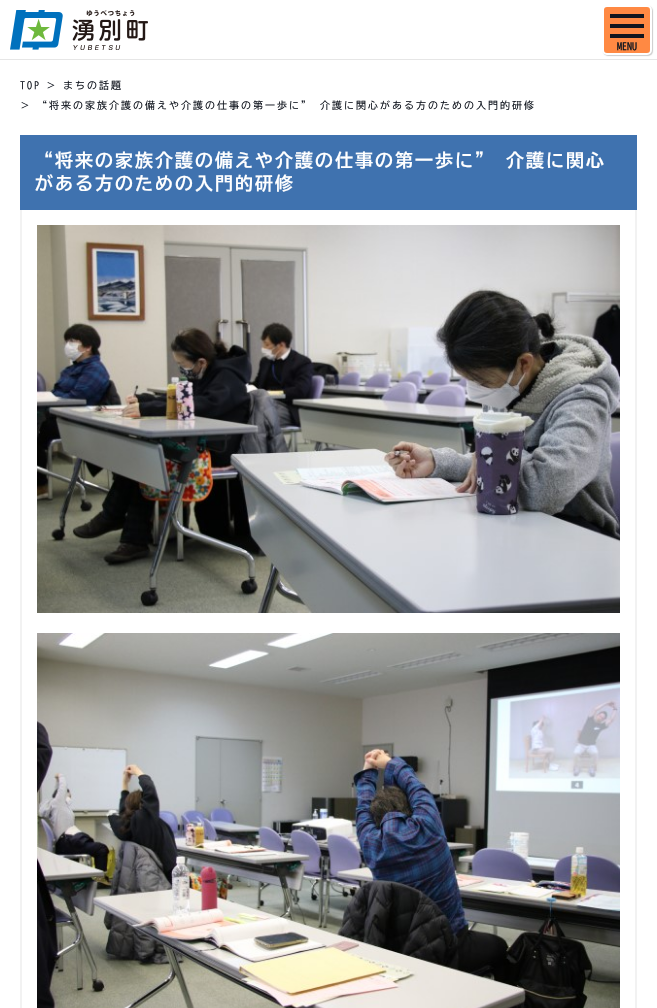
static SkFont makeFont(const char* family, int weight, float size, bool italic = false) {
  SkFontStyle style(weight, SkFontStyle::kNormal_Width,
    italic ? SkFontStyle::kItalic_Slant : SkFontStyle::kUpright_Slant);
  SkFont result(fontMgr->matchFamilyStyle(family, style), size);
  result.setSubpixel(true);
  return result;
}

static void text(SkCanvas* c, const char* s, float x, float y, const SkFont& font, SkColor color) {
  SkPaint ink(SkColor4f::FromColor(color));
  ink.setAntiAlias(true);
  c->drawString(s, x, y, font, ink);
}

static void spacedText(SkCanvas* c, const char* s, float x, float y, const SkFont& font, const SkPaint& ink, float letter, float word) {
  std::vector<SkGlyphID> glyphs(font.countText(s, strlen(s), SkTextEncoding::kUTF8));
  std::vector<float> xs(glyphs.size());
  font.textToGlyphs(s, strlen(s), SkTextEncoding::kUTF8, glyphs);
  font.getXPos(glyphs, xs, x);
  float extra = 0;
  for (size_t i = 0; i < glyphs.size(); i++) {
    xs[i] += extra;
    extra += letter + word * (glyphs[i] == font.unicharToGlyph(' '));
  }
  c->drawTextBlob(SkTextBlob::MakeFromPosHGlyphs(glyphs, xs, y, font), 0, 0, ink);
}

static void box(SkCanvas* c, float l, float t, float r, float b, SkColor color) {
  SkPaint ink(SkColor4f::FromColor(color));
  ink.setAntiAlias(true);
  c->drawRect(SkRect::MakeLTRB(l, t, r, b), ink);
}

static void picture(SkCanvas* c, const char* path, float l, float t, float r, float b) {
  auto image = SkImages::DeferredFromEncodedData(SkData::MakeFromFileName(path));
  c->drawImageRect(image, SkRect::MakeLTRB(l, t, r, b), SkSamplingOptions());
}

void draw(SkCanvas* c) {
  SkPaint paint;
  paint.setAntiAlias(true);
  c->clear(0xffffffff);
  picture(c, "img_01.png", 10, 10, 148, 50);
  paint.setColor(0x33000000);
  paint.setMaskFilter(SkMaskFilter::MakeBlur(kNormal_SkBlurStyle, 0.5f));
  c->drawRoundRect(SkRect::MakeLTRB(603, 6, 653, 56), 5, 5, paint);
  paint.setMaskFilter(nullptr);
  paint.setColor(0xffff8943);
  c->drawRoundRect(SkRect::MakeLTRB(603, 6, 651, 54), 4, 4, paint);
  paint.setStyle(SkPaint::kStroke_Style);
  paint.setStrokeWidth(2);
  paint.setColor(0xffffffff);
  c->drawRoundRect(SkRect::MakeLTRB(603, 6, 651, 54), 4, 4, paint);
  box(c, 610, 14, 644, 18, 0xff11161f);
  box(c, 610, 24, 644, 28, 0xff11161f);
  box(c, 610, 34, 644, 38, 0xff11161f);
  SkFont face1 = makeFont("BIZ UDGothic", 700, 10);
  text(c, "MENU", 617, 50, face1, 0xff11161f);
  box(c, 0, 59, 657, 60, 0xffe6e6e6);
  SkFont face2 = makeFont("BIZ UDGothic", 400, 10);
  paint.setStyle(SkPaint::kFill_Style);
  paint.setColor(0xff11161f);
  spacedText(c, "TOP", 20, 89, face2, paint, 2, 0);
  spacedText(c, "＞", 46, 89, face2, paint, 2, 0);
  spacedText(c, "まちの話題", 63, 89, face2, paint, 2, 0);
  spacedText(c, "＞", 20, 109, face2, paint, 2, 0);
  spacedText(c, "“将来の家族介護の備えや介護の仕事の第一歩に” 介護に関心がある方のための入門的研修", 37, 109, face2, paint, 2, 0);
  box(c, 20, 135, 637, 210, 0xff3f72af);
  SkFont face3 = makeFont("BIZ UDGothic", 700, 18);
  paint.setColor(0xffffffff);
  spacedText(c, "“将来の家族介護の備えや介護の仕事の第一歩に” 介護に関心", 35, 167, face3, paint, 2, 0);
  spacedText(c, "がある方のための入門的研修", 35, 190, face3, paint, 2, 0);
  box(c, 635, 210, 637, 1008, 0xfff2f2f2);
  box(c, 20, 210, 22, 1008, 0xfff2f2f2);
  picture(c, "img_02.png", 37, 225, 620, 613);
  picture(c, "img_03.png", 37, 633, 620, 1008);
}
